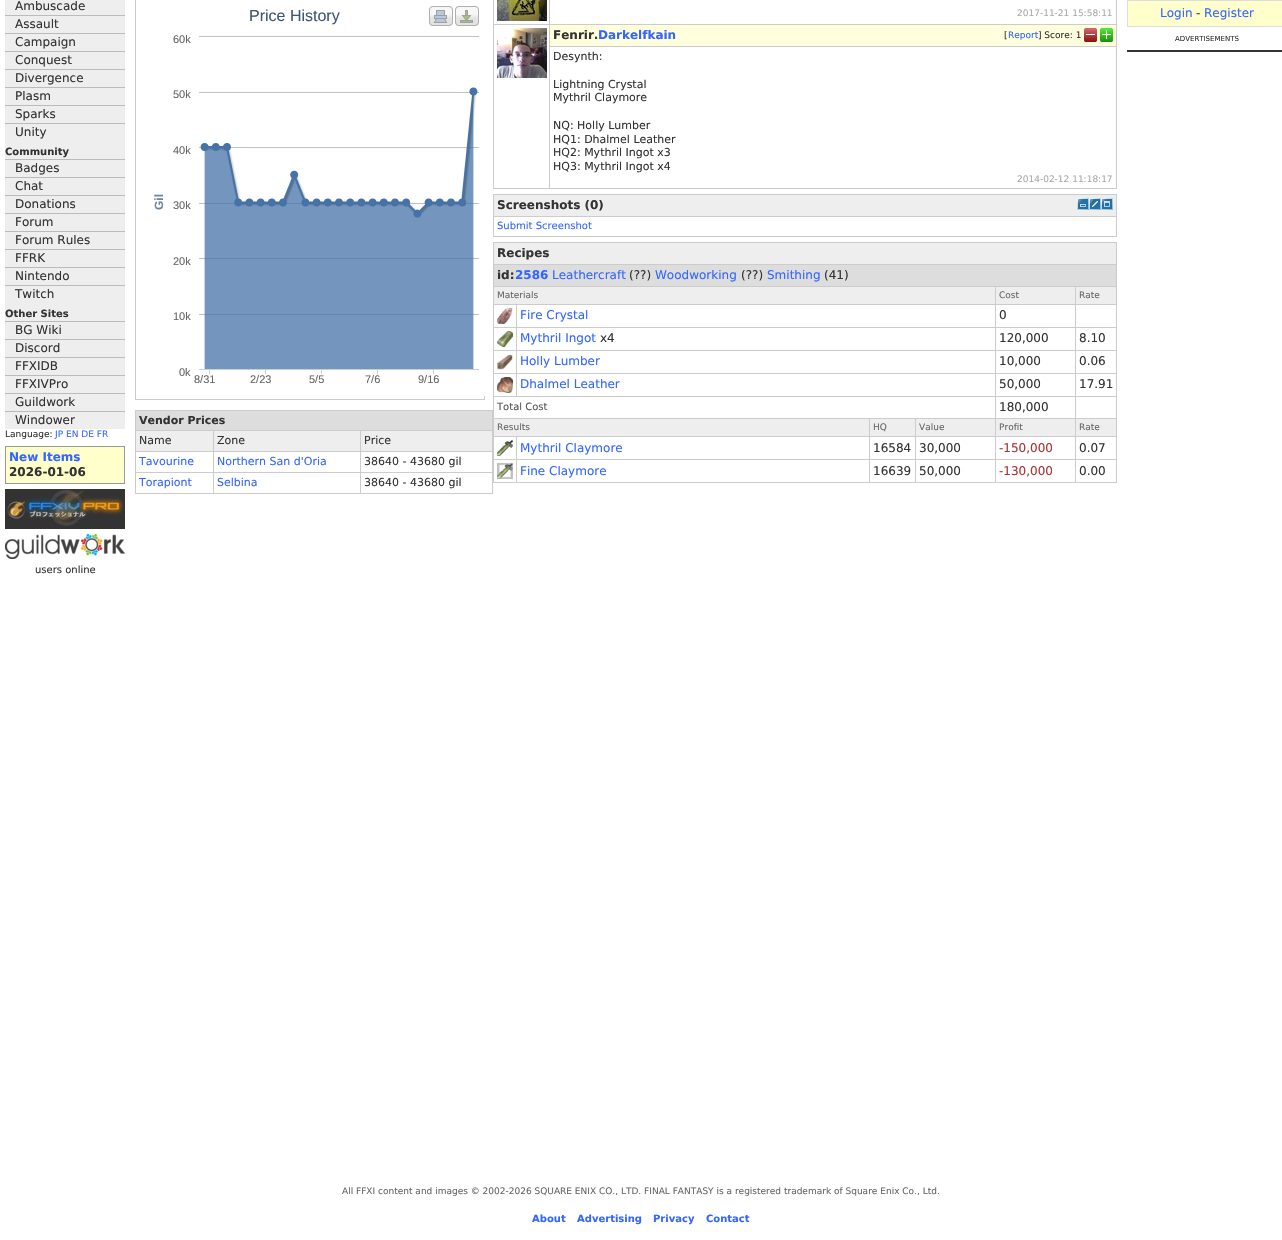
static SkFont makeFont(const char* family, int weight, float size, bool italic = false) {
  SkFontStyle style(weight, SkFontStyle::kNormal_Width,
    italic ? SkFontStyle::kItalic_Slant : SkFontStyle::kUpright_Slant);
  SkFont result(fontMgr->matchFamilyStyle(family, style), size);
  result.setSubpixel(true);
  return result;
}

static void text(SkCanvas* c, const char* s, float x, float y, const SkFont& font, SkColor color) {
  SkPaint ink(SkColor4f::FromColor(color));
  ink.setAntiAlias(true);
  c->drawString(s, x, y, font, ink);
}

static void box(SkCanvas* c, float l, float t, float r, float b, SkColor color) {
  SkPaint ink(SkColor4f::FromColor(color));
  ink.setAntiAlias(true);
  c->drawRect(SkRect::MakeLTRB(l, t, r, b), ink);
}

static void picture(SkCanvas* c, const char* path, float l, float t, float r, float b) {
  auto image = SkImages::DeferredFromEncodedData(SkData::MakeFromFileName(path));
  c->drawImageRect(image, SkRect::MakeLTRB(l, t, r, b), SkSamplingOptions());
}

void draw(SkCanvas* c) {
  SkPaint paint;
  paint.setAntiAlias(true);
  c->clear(0xffffffff);
  box(c, 5, 0, 125, 429, 0xffeeeeee);
  SkFont face1 = makeFont("DejaVu Sans", 400, 12);
  text(c, "Ambuscade", 15, 10, face1, 0xff333333);
  box(c, 5, 15, 125, 16, 0xffbbbbbb);
  text(c, "Assault", 15, 28, face1, 0xff333333);
  box(c, 5, 33, 125, 34, 0xffbbbbbb);
  text(c, "Campaign", 15, 46, face1, 0xff333333);
  box(c, 5, 51, 125, 52, 0xffbbbbbb);
  text(c, "Conquest", 15, 64, face1, 0xff333333);
  box(c, 5, 69, 125, 70, 0xffbbbbbb);
  text(c, "Divergence", 15, 82, face1, 0xff333333);
  box(c, 5, 87, 125, 88, 0xffbbbbbb);
  text(c, "Plasm", 15, 100, face1, 0xff333333);
  box(c, 5, 105, 125, 106, 0xffbbbbbb);
  text(c, "Sparks", 15, 118, face1, 0xff333333);
  box(c, 5, 123, 125, 124, 0xffbbbbbb);
  text(c, "Unity", 15, 136, face1, 0xff333333);
  SkFont face2 = makeFont("DejaVu Sans", 700, 10);
  text(c, "Community", 5, 155, face2, 0xff333333);
  box(c, 5, 159, 125, 160, 0xffbbbbbb);
  text(c, "Badges", 15, 172, face1, 0xff333333);
  box(c, 5, 177, 125, 178, 0xffbbbbbb);
  text(c, "Chat", 15, 190, face1, 0xff333333);
  box(c, 5, 195, 125, 196, 0xffbbbbbb);
  text(c, "Donations", 15, 208, face1, 0xff333333);
  box(c, 5, 213, 125, 214, 0xffbbbbbb);
  text(c, "Forum", 15, 226, face1, 0xff333333);
  box(c, 5, 231, 125, 232, 0xffbbbbbb);
  text(c, "Forum Rules", 15, 244, face1, 0xff333333);
  box(c, 5, 249, 125, 250, 0xffbbbbbb);
  text(c, "FFRK", 15, 262, face1, 0xff333333);
  box(c, 5, 267, 125, 268, 0xffbbbbbb);
  text(c, "Nintendo", 15, 280, face1, 0xff333333);
  box(c, 5, 285, 125, 286, 0xffbbbbbb);
  text(c, "Twitch", 15, 298, face1, 0xff333333);
  text(c, "Other Sites", 5, 317, face2, 0xff333333);
  box(c, 5, 321, 125, 322, 0xffbbbbbb);
  text(c, "BG Wiki", 15, 334, face1, 0xff333333);
  box(c, 5, 339, 125, 340, 0xffbbbbbb);
  text(c, "Discord", 15, 352, face1, 0xff333333);
  box(c, 5, 357, 125, 358, 0xffbbbbbb);
  text(c, "FFXIDB", 15, 370, face1, 0xff333333);
  box(c, 5, 375, 125, 376, 0xffbbbbbb);
  text(c, "FFXIVPro", 15, 388, face1, 0xff333333);
  box(c, 5, 393, 125, 394, 0xffbbbbbb);
  text(c, "Guildwork", 15, 406, face1, 0xff333333);
  box(c, 5, 411, 125, 412, 0xffbbbbbb);
  text(c, "Windower", 15, 424, face1, 0xff333333);
  SkFont face3 = makeFont("DejaVu Sans", 400, 9);
  text(c, "Language:", 5, 437, face3, 0xff333333);
  text(c, "JP EN DE FR", 55, 437, face3, 0xff3366ff);
  paint.setColor(0xffffffcc);
  c->drawRect(SkRect::MakeLTRB(5.5f, 446.5f, 124.5f, 483.5f), paint);
  paint.setStyle(SkPaint::kStroke_Style);
  paint.setStrokeWidth(1);
  paint.setColor(0xff999999);
  c->drawRect(SkRect::MakeLTRB(5.5f, 446.5f, 124.5f, 483.5f), paint);
  SkFont face4 = makeFont("DejaVu Sans", 700, 12);
  text(c, "New Items", 9, 461, face4, 0xff3366ff);
  text(c, "2026-01-06", 9, 476, face4, 0xff333333);
  picture(c, "img_01.png", 5, 489, 125, 529);
  picture(c, "img_02.png", 5, 534, 125, 559);
  SkFont face5 = makeFont("DejaVu Sans", 400, 10);
  text(c, "users online", 35, 573, face5, 0xff333333);
  paint.setColor(0xffcccccc);
  c->drawRect(SkRect::MakeLTRB(135.5f, -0.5f, 484.5f, 399.5f), paint);
  picture(c, "img_03.png", 199, 0, 485, 396);
  SkFont face6 = makeFont("Liberation Sans", 400, 16);
  text(c, "Price History", 249, 21, face6, 0xff3e576f);
  SkFont face7 = makeFont("Liberation Sans", 400, 11);
  text(c, "60k", 173, 43, face7, 0xff666666);
  text(c, "50k", 173, 98, face7, 0xff666666);
  text(c, "40k", 173, 154, face7, 0xff666666);
  SkFont face8 = makeFont("Liberation Sans", 700, 12);
  c->save();
  c->rotate(-90, 163, 210);
  text(c, "Gil", 163, 210, face8, 0xff6d869f);
  c->restore();
  text(c, "30k", 173, 209, face7, 0xff666666);
  text(c, "20k", 173, 265, face7, 0xff666666);
  text(c, "10k", 173, 320, face7, 0xff666666);
  text(c, "0k", 179, 376, face7, 0xff666666);
  text(c, "8/31", 194, 383, face7, 0xff666666);
  text(c, "2/23", 250, 383, face7, 0xff666666);
  text(c, "5/5", 309, 383, face7, 0xff666666);
  text(c, "7/6", 365, 383, face7, 0xff666666);
  text(c, "9/16", 418, 383, face7, 0xff666666);
  box(c, 136, 411, 492, 430, 0xffdddddd);
  box(c, 135, 410, 493, 411, 0xffcccccc);
  box(c, 360, 430, 493, 431, 0xffcccccc);
  box(c, 360, 451, 493, 452, 0xffcccccc);
  box(c, 360, 472, 493, 473, 0xffcccccc);
  box(c, 492, 472, 493, 494, 0xffcccccc);
  box(c, 492, 451, 493, 473, 0xffcccccc);
  box(c, 492, 430, 493, 452, 0xffcccccc);
  box(c, 492, 410, 493, 431, 0xffcccccc);
  box(c, 136, 431, 492, 451, 0xffeeeeee);
  box(c, 360, 493, 493, 494, 0xffcccccc);
  box(c, 360, 472, 361, 494, 0xffcccccc);
  box(c, 213, 472, 361, 473, 0xffcccccc);
  box(c, 360, 451, 361, 473, 0xffcccccc);
  box(c, 213, 451, 361, 452, 0xffcccccc);
  box(c, 360, 430, 361, 452, 0xffcccccc);
  box(c, 213, 430, 361, 431, 0xffcccccc);
  box(c, 213, 493, 361, 494, 0xffcccccc);
  box(c, 213, 472, 214, 494, 0xffcccccc);
  box(c, 135, 472, 214, 473, 0xffcccccc);
  box(c, 213, 451, 214, 473, 0xffcccccc);
  box(c, 135, 451, 214, 452, 0xffcccccc);
  box(c, 213, 430, 214, 452, 0xffcccccc);
  box(c, 135, 430, 214, 431, 0xffcccccc);
  box(c, 135, 493, 214, 494, 0xffcccccc);
  box(c, 135, 472, 136, 494, 0xffcccccc);
  box(c, 135, 451, 136, 473, 0xffcccccc);
  box(c, 135, 430, 136, 452, 0xffcccccc);
  box(c, 135, 410, 136, 431, 0xffcccccc);
  SkFont face9 = makeFont("DejaVu Sans", 700, 11);
  text(c, "Vendor Prices", 139, 424, face9, 0xff333333);
  SkFont face10 = makeFont("DejaVu Sans", 400, 11);
  text(c, "Name", 139, 444, face10, 0xff333333);
  text(c, "Zone", 217, 444, face10, 0xff333333);
  text(c, "Price", 364, 444, face10, 0xff333333);
  text(c, "Tavourine", 139, 465, face10, 0xff3366ff);
  text(c, "Northern San d'Oria", 217, 465, face10, 0xff3366ff);
  text(c, "38640 - 43680 gil", 364, 465, face10, 0xff333333);
  text(c, "Torapiont", 139, 486, face10, 0xff3366ff);
  text(c, "Selbina", 217, 486, face10, 0xff3366ff);
  text(c, "38640 - 43680 gil", 364, 486, face10, 0xff333333);
  picture(c, "img_04.png", 497, 0, 547, 21);
  box(c, 549, 24, 1117, 25, 0xffcccccc);
  box(c, 549, 46, 1117, 47, 0xffcccccc);
  box(c, 1116, 46, 1117, 189, 0xffcccccc);
  box(c, 549, 188, 1117, 189, 0xffcccccc);
  box(c, 549, 46, 550, 189, 0xffcccccc);
  box(c, 549, 24, 550, 47, 0xffcccccc);
  box(c, 493, 24, 550, 25, 0xffcccccc);
  box(c, 549, 0, 550, 25, 0xffcccccc);
  text(c, "2017-11-21 15:58:11", 1017, 16, face3, 0xffaaaaaa);
  box(c, 493, 188, 550, 189, 0xffcccccc);
  box(c, 493, 0, 494, 189, 0xffcccccc);
  picture(c, "img_05.png", 497, 28, 547, 78);
  box(c, 550, 25, 1116, 46, 0xffffffdd);
  box(c, 1116, 0, 1117, 47, 0xffcccccc);
  text(c, "Fenrir.", 553, 39, face4, 0xff333333);
  text(c, "Darkelfkain", 598, 39, face4, 0xff3366ff);
  text(c, "[", 1004, 38, face3, 0xff333333);
  text(c, "Report", 1008, 38, face3, 0xff3366ff);
  text(c, "] Score: 1", 1038, 38, face3, 0xff333333);
  picture(c, "img_06.png", 1084, 28, 1097, 42);
  picture(c, "img_07.png", 1100, 28, 1113, 42);
  text(c, "Desynth:", 553, 60, face10, 0xff333333);
  text(c, "Lightning Crystal", 553, 88, face10, 0xff333333);
  text(c, "Mythril Claymore", 553, 101, face10, 0xff333333);
  text(c, "NQ: Holly Lumber", 553, 129, face10, 0xff333333);
  text(c, "HQ1: Dhalmel Leather", 553, 143, face10, 0xff333333);
  text(c, "HQ2: Mythril Ingot x3", 553, 156, face10, 0xff333333);
  text(c, "HQ3: Mythril Ingot x4", 553, 170, face10, 0xff333333);
  text(c, "2014-02-12 11:18:17", 1017, 182, face3, 0xffaaaaaa);
  box(c, 494, 195, 1116, 216, 0xffeeeeee);
  box(c, 493, 194, 1117, 195, 0xffcccccc);
  box(c, 493, 216, 1117, 217, 0xffcccccc);
  box(c, 1116, 216, 1117, 237, 0xffcccccc);
  box(c, 1116, 194, 1117, 217, 0xffcccccc);
  box(c, 493, 236, 1117, 237, 0xffcccccc);
  box(c, 493, 216, 494, 237, 0xffcccccc);
  box(c, 493, 194, 494, 217, 0xffcccccc);
  text(c, "Screenshots (0)", 497, 209, face4, 0xff333333);
  picture(c, "img_08.png", 1077, 198, 1089, 210);
  picture(c, "img_09.png", 1089, 198, 1101, 210);
  picture(c, "img_10.png", 1101, 198, 1113, 210);
  text(c, "Submit Screenshot", 497, 229, face5, 0xff3366ff);
  box(c, 494, 243, 1116, 264, 0xffeeeeee);
  box(c, 493, 242, 1117, 243, 0xffcccccc);
  box(c, 1116, 242, 1117, 264, 0xffcccccc);
  box(c, 493, 242, 494, 264, 0xffcccccc);
  text(c, "Recipes", 497, 257, face4, 0xff333333);
  box(c, 494, 265, 1116, 286, 0xffdddddd);
  box(c, 493, 264, 1117, 265, 0xffcccccc);
  box(c, 1075, 286, 1117, 287, 0xffcccccc);
  box(c, 1075, 304, 1117, 305, 0xffcccccc);
  box(c, 1075, 327, 1117, 328, 0xffcccccc);
  box(c, 1075, 350, 1117, 351, 0xffcccccc);
  box(c, 1075, 373, 1117, 374, 0xffcccccc);
  box(c, 1075, 396, 1117, 397, 0xffcccccc);
  box(c, 1075, 418, 1117, 419, 0xffcccccc);
  box(c, 1075, 436, 1117, 437, 0xffcccccc);
  box(c, 1075, 459, 1117, 460, 0xffcccccc);
  box(c, 1116, 459, 1117, 483, 0xffcccccc);
  box(c, 1116, 436, 1117, 460, 0xffcccccc);
  box(c, 1116, 418, 1117, 437, 0xffcccccc);
  box(c, 1116, 396, 1117, 419, 0xffcccccc);
  box(c, 1116, 373, 1117, 397, 0xffcccccc);
  box(c, 1116, 350, 1117, 374, 0xffcccccc);
  box(c, 1116, 327, 1117, 351, 0xffcccccc);
  box(c, 1116, 304, 1117, 328, 0xffcccccc);
  box(c, 1116, 286, 1117, 305, 0xffcccccc);
  box(c, 1116, 264, 1117, 287, 0xffcccccc);
  box(c, 494, 287, 1116, 304, 0xffeeeeee);
  box(c, 494, 419, 1116, 436, 0xffeeeeee);
  box(c, 1075, 482, 1117, 483, 0xffcccccc);
  box(c, 1075, 459, 1076, 483, 0xffcccccc);
  box(c, 995, 459, 1076, 460, 0xffcccccc);
  box(c, 1075, 436, 1076, 460, 0xffcccccc);
  box(c, 995, 436, 1076, 437, 0xffcccccc);
  box(c, 1075, 418, 1076, 437, 0xffcccccc);
  box(c, 995, 418, 1076, 419, 0xffcccccc);
  box(c, 1075, 396, 1076, 419, 0xffcccccc);
  box(c, 995, 396, 1076, 397, 0xffcccccc);
  box(c, 1075, 373, 1076, 397, 0xffcccccc);
  box(c, 995, 373, 1076, 374, 0xffcccccc);
  box(c, 1075, 350, 1076, 374, 0xffcccccc);
  box(c, 995, 350, 1076, 351, 0xffcccccc);
  box(c, 1075, 327, 1076, 351, 0xffcccccc);
  box(c, 995, 327, 1076, 328, 0xffcccccc);
  box(c, 1075, 304, 1076, 328, 0xffcccccc);
  box(c, 995, 304, 1076, 305, 0xffcccccc);
  box(c, 1075, 286, 1076, 305, 0xffcccccc);
  box(c, 995, 286, 1076, 287, 0xffcccccc);
  box(c, 995, 482, 1076, 483, 0xffcccccc);
  box(c, 995, 459, 996, 483, 0xffcccccc);
  box(c, 915, 459, 996, 460, 0xffcccccc);
  box(c, 995, 436, 996, 460, 0xffcccccc);
  box(c, 915, 436, 996, 437, 0xffcccccc);
  box(c, 995, 418, 996, 437, 0xffcccccc);
  box(c, 915, 418, 996, 419, 0xffcccccc);
  box(c, 995, 396, 996, 419, 0xffcccccc);
  box(c, 493, 396, 996, 397, 0xffcccccc);
  box(c, 995, 373, 996, 397, 0xffcccccc);
  box(c, 516, 373, 996, 374, 0xffcccccc);
  box(c, 995, 350, 996, 374, 0xffcccccc);
  box(c, 516, 350, 996, 351, 0xffcccccc);
  box(c, 995, 327, 996, 351, 0xffcccccc);
  box(c, 516, 327, 996, 328, 0xffcccccc);
  box(c, 995, 304, 996, 328, 0xffcccccc);
  box(c, 516, 304, 996, 305, 0xffcccccc);
  box(c, 995, 286, 996, 305, 0xffcccccc);
  box(c, 493, 286, 996, 287, 0xffcccccc);
  box(c, 516, 373, 517, 397, 0xffcccccc);
  box(c, 493, 373, 517, 374, 0xffcccccc);
  box(c, 516, 350, 517, 374, 0xffcccccc);
  box(c, 493, 350, 517, 351, 0xffcccccc);
  box(c, 516, 327, 517, 351, 0xffcccccc);
  box(c, 493, 327, 517, 328, 0xffcccccc);
  box(c, 516, 304, 517, 328, 0xffcccccc);
  box(c, 493, 304, 517, 305, 0xffcccccc);
  box(c, 915, 482, 996, 483, 0xffcccccc);
  box(c, 915, 459, 916, 483, 0xffcccccc);
  box(c, 869, 459, 916, 460, 0xffcccccc);
  box(c, 915, 436, 916, 460, 0xffcccccc);
  box(c, 869, 436, 916, 437, 0xffcccccc);
  box(c, 915, 418, 916, 437, 0xffcccccc);
  box(c, 869, 418, 916, 419, 0xffcccccc);
  box(c, 869, 482, 916, 483, 0xffcccccc);
  box(c, 869, 459, 870, 483, 0xffcccccc);
  box(c, 516, 459, 870, 460, 0xffcccccc);
  box(c, 869, 436, 870, 460, 0xffcccccc);
  box(c, 516, 436, 870, 437, 0xffcccccc);
  box(c, 869, 418, 870, 437, 0xffcccccc);
  box(c, 493, 418, 870, 419, 0xffcccccc);
  box(c, 516, 482, 870, 483, 0xffcccccc);
  box(c, 516, 459, 517, 483, 0xffcccccc);
  box(c, 493, 459, 517, 460, 0xffcccccc);
  box(c, 516, 436, 517, 460, 0xffcccccc);
  box(c, 493, 436, 517, 437, 0xffcccccc);
  box(c, 493, 482, 517, 483, 0xffcccccc);
  box(c, 493, 459, 494, 483, 0xffcccccc);
  box(c, 493, 436, 494, 460, 0xffcccccc);
  box(c, 493, 418, 494, 437, 0xffcccccc);
  box(c, 493, 396, 494, 419, 0xffcccccc);
  box(c, 493, 373, 494, 397, 0xffcccccc);
  box(c, 493, 350, 494, 374, 0xffcccccc);
  box(c, 493, 327, 494, 351, 0xffcccccc);
  box(c, 493, 304, 494, 328, 0xffcccccc);
  box(c, 493, 286, 494, 305, 0xffcccccc);
  box(c, 493, 264, 494, 287, 0xffcccccc);
  text(c, "id:", 497, 279, face4, 0xff333333);
  text(c, "2586", 515, 279, face4, 0xff3366ff);
  text(c, "Leathercraft", 552, 279, face1, 0xff3366ff);
  text(c, "(?\077)", 629, 279, face1, 0xff333333);
  text(c, "Woodworking", 655, 279, face1, 0xff3366ff);
  text(c, "(?\077)", 741, 279, face1, 0xff333333);
  text(c, "Smithing", 767, 279, face1, 0xff3366ff);
  text(c, "(41)", 824, 279, face1, 0xff333333);
  text(c, "Materials", 497, 298, face3, 0xff666666);
  text(c, "Cost", 999, 298, face3, 0xff666666);
  text(c, "Rate", 1079, 298, face3, 0xff666666);
  picture(c, "img_11.png", 497, 308, 513, 324);
  text(c, "Fire Crystal", 520, 319, face1, 0xff3366ff);
  text(c, "0", 999, 319, face1, 0xff333333);
  picture(c, "img_12.png", 497, 331, 513, 347);
  text(c, "Mythril Ingot", 520, 342, face1, 0xff3366ff);
  text(c, "x4", 600, 342, face1, 0xff333333);
  text(c, "120,000", 999, 342, face1, 0xff333333);
  text(c, "8.10", 1079, 342, face1, 0xff333333);
  picture(c, "img_13.png", 497, 354, 513, 370);
  text(c, "Holly Lumber", 520, 365, face1, 0xff3366ff);
  text(c, "10,000", 999, 365, face1, 0xff333333);
  text(c, "0.06", 1079, 365, face1, 0xff333333);
  picture(c, "img_14.png", 497, 377, 513, 393);
  text(c, "Dhalmel Leather", 520, 388, face1, 0xff3366ff);
  text(c, "50,000", 999, 388, face1, 0xff333333);
  text(c, "17.91", 1079, 388, face1, 0xff333333);
  text(c, "Total Cost", 497, 410, face5, 0xff555555);
  text(c, "180,000", 999, 411, face1, 0xff333333);
  text(c, "Results", 497, 430, face3, 0xff666666);
  text(c, "HQ", 873, 430, face3, 0xff666666);
  text(c, "Value", 919, 430, face3, 0xff666666);
  text(c, "Profit", 999, 430, face3, 0xff666666);
  text(c, "Rate", 1079, 430, face3, 0xff666666);
  picture(c, "img_15.png", 497, 440, 513, 456);
  text(c, "Mythril Claymore", 520, 452, face1, 0xff3366ff);
  text(c, "16584", 873, 452, face1, 0xff333333);
  text(c, "30,000", 919, 452, face1, 0xff333333);
  text(c, "-150,000", 999, 452, face1, 0xffaa3333);
  text(c, "0.07", 1079, 452, face1, 0xff333333);
  picture(c, "img_16.png", 497, 463, 513, 479);
  text(c, "Fine Claymore", 520, 475, face1, 0xff3366ff);
  text(c, "16639", 873, 475, face1, 0xff333333);
  text(c, "50,000", 919, 475, face1, 0xff333333);
  text(c, "-130,000", 999, 475, face1, 0xffaa3333);
  text(c, "0.00", 1079, 475, face1, 0xff333333);
  paint.setStyle(SkPaint::kFill_Style);
  paint.setColor(0xffffffcc);
  c->drawRect(SkRect::MakeLTRB(1127.5f, 0.5f, 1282.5f, 26.5f), paint);
  paint.setStyle(SkPaint::kStroke_Style);
  paint.setColor(0xffdddddd);
  c->drawRect(SkRect::MakeLTRB(1127.5f, 0.5f, 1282.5f, 26.5f), paint);
  text(c, "Login", 1160, 17, face1, 0xff3366ff);
  text(c, "-", 1196, 17, face1, 0xff333333);
  text(c, "Register", 1204, 17, face1, 0xff3366ff);
  SkFont face11 = makeFont("DejaVu Sans", 400, 7);
  text(c, "ADVERTISEMENTS", 1175, 41, face11, 0xff333333);
  box(c, 1127, 50, 1282, 52, 0xff333333);
  text(c, "All FFXI content and images © 2002-2026 SQUARE ENIX CO., LTD. FINAL FANTASY is a registered trademark of Square Enix Co., Ltd.", 342, 1194, face3, 0xff666666);
  text(c, "About", 532, 1222, face2, 0xff3366ff);
  text(c, "Advertising", 577, 1222, face2, 0xff3366ff);
  text(c, "Privacy", 653, 1222, face2, 0xff3366ff);
  text(c, "Contact", 706, 1222, face2, 0xff3366ff);
}
